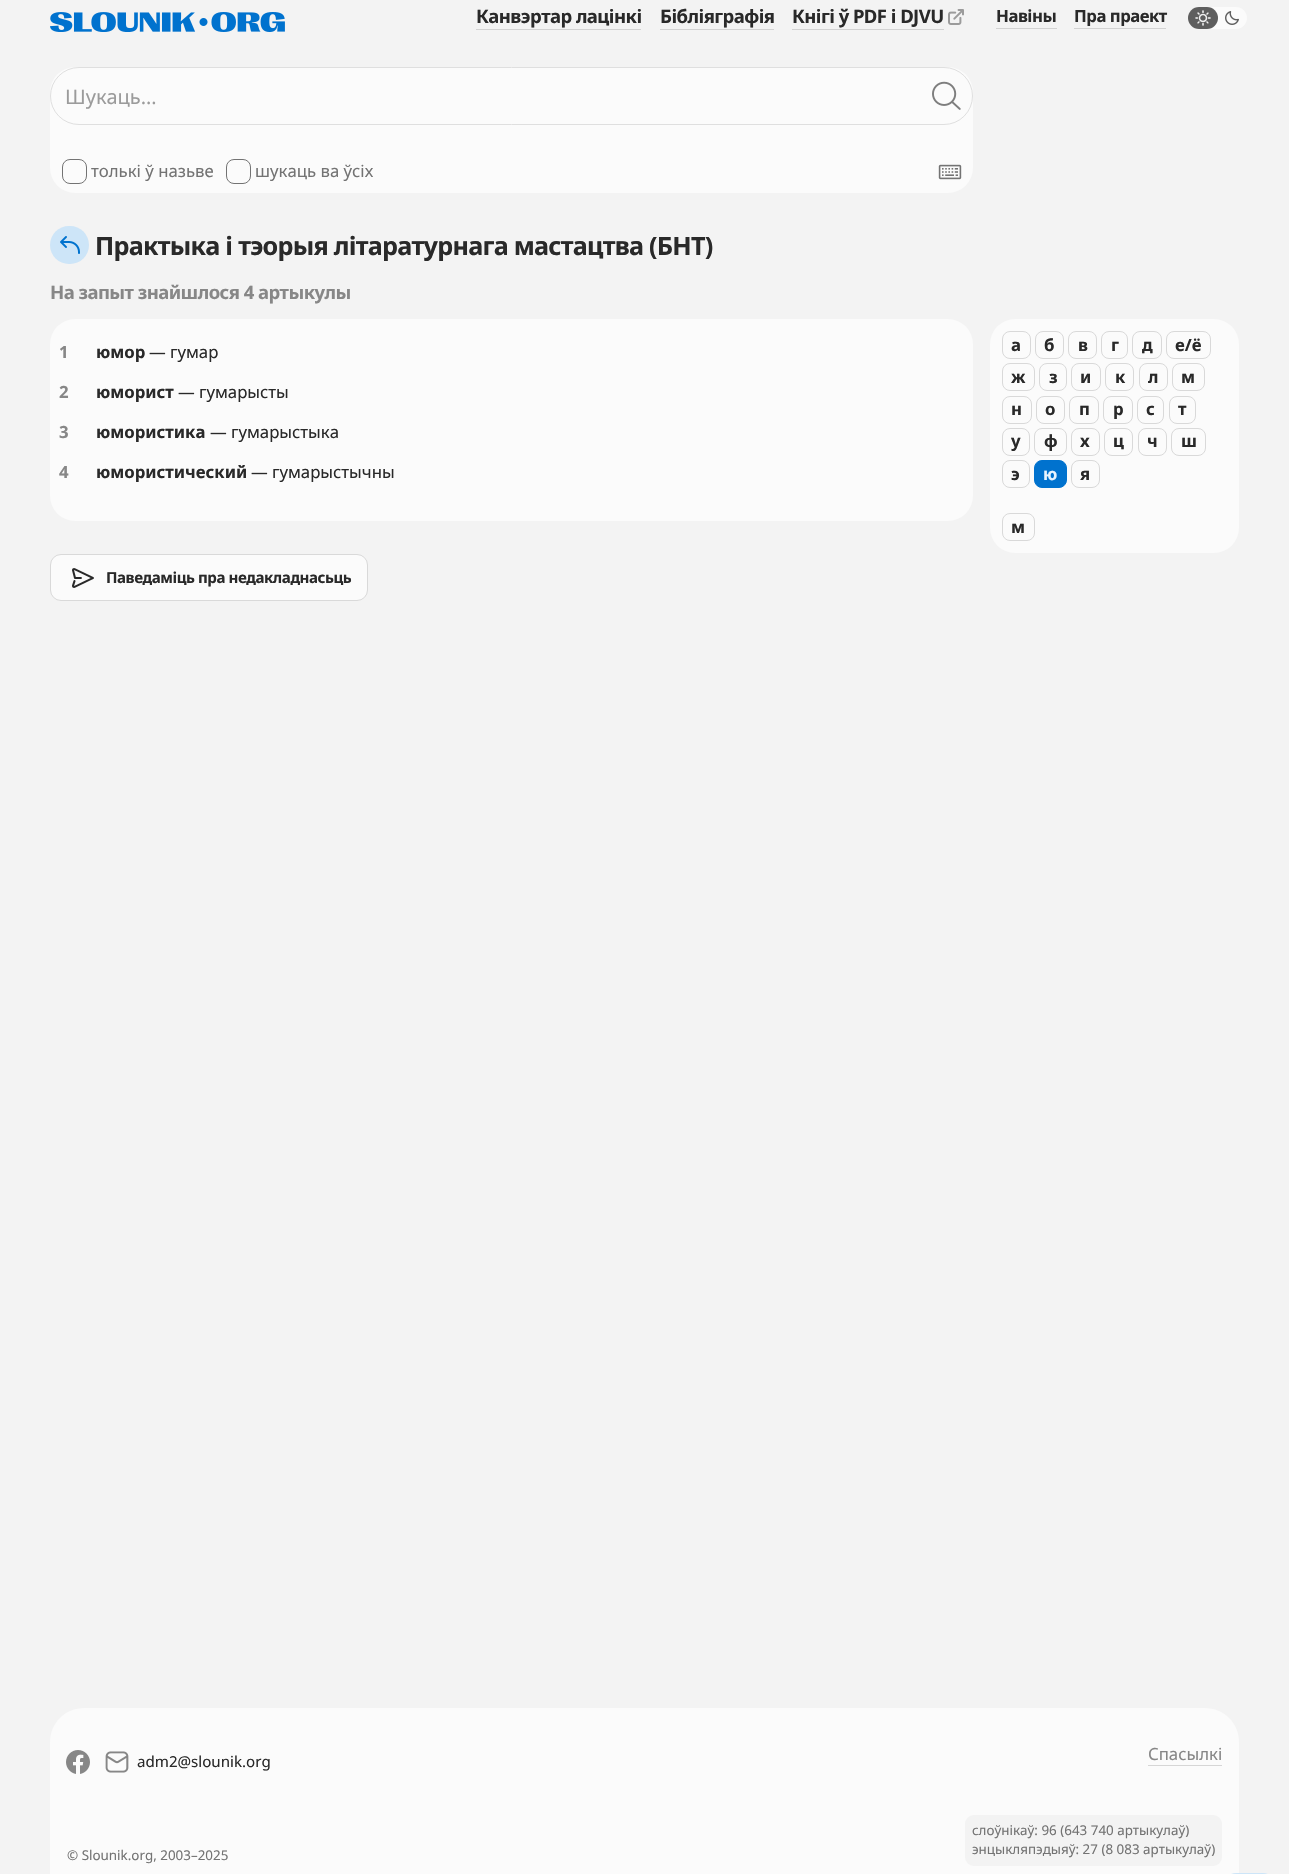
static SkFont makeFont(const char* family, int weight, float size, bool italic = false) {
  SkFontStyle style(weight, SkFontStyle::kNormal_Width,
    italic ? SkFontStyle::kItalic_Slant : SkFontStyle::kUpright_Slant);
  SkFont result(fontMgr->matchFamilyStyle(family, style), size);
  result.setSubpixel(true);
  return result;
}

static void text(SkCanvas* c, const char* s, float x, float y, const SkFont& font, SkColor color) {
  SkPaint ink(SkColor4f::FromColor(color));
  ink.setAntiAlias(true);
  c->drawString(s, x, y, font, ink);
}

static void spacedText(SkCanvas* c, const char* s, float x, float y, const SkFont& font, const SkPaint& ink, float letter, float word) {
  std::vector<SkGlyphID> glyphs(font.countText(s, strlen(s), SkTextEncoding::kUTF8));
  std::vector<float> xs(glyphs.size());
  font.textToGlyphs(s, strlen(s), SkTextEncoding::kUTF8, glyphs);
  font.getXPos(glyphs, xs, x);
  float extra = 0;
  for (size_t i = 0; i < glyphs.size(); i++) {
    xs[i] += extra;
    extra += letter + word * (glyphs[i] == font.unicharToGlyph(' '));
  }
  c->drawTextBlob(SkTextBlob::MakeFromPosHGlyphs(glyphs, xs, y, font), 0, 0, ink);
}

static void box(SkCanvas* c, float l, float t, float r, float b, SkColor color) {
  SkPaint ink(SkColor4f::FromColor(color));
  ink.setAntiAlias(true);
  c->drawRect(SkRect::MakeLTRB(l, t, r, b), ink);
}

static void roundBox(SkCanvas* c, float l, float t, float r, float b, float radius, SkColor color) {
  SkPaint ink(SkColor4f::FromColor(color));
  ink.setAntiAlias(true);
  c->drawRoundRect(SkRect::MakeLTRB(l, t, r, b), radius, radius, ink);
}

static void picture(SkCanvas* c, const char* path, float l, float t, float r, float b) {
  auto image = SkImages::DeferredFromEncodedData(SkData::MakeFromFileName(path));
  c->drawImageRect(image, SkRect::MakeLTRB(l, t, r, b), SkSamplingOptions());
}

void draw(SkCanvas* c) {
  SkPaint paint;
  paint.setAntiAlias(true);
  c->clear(0xfff3f3f3);
  picture(c, "img_01.png", 50, 12, 285, 32);
  box(c, 476, 29, 641, 30, 0xffd2d2d2);
  SkFont face1 = makeFont("Noto Sans", 700, 18.5f);
  paint.setColor(0xff292929);
  spacedText(c, "Канвэртар лацінкі", 476, 23, face1, paint, -0.55f, 0);
  box(c, 660, 29, 774, 30, 0xffd2d2d2);
  spacedText(c, "Бібліяграфія", 660, 23, face1, paint, -0.55f, 0);
  box(c, 792, 29, 944, 30, 0xffd2d2d2);
  spacedText(c, "Кнігі ў PDF і DJVU", 792, 23, face1, paint, -0.55f, 0);
  picture(c, "img_02.png", 948, 9, 964, 25);
  box(c, 996, 28, 1057, 29, 0xffd2d2d2);
  SkFont face2 = makeFont("Noto Sans", 700, 16.75f);
  spacedText(c, "Навіны", 996, 22, face2, paint, -0.5f, 0);
  box(c, 1074, 28, 1166, 29, 0xffd2d2d2);
  spacedText(c, "Пра праект", 1074, 22, face2, paint, -0.5f, 0);
  roundBox(c, 1188, 7, 1247, 29, 11, 0xfffbfbfb);
  roundBox(c, 1188, 7, 1218, 29, 11, 0xff5e5e5e);
  picture(c, "img_03.png", 1195, 10, 1211, 26);
  picture(c, "img_04.png", 1225, 11, 1239, 25);
  roundBox(c, 50, 67, 973, 193, 25, 0xfffbfbfb);
  paint.setStyle(SkPaint::kStroke_Style);
  paint.setStrokeWidth(1);
  paint.setColor(0xffdfdfdf);
  c->drawRoundRect(SkRect::MakeLTRB(50.5f, 67.5f, 972.5f, 124.5f), 28.5f, 28.5f, paint);
  SkFont face3 = makeFont("Noto Sans", 400, 20);
  text(c, "Шукаць…", 65, 104, face3, 0xff9b9b9b);
  picture(c, "img_05.png", 932, 81, 961, 110);
  paint.setColor(0xff737373);
  c->drawRoundRect(SkRect::MakeLTRB(62.5f, 159.5f, 86.5f, 183.5f), 7.5f, 7.5f, paint);
  SkFont face4 = makeFont("Noto Sans", 400, 16.75f);
  text(c, "толькі ў назьве", 91, 177, face4, 0xff737373);
  c->drawRoundRect(SkRect::MakeLTRB(226.5f, 159.5f, 250.5f, 183.5f), 7.5f, 7.5f, paint);
  text(c, "шукаць ва ўсіх", 255, 177, face4, 0xff737373);
  picture(c, "img_06.png", 938, 164, 962, 180);
  roundBox(c, 50, 226, 89, 264, 19, 0xffcde5f8);
  picture(c, "img_07.png", 60, 236, 80, 254);
  SkFont face5 = makeFont("Noto Sans", 700, 25.2f);
  paint.setStyle(SkPaint::kFill_Style);
  paint.setColor(0xff292929);
  spacedText(c, "Практыка і тэорыя літаратурнага мастацтва (БНТ)", 95, 255, face5, paint, -0.75f, 0);
  paint.setColor(0xff878787);
  spacedText(c, "На запыт знайшлося 4 артыкулы", 50, 299, face1, paint, -0.55f, 0);
  roundBox(c, 50, 319, 973, 521, 25, 0xfffbfbfb);
  text(c, "1", 59, 358, face2, 0xff878787);
  text(c, "юмор", 96, 358, face2, 0xff292929);
  text(c, "— гумар", 149, 358, face4, 0xff292929);
  text(c, "2", 59, 398, face2, 0xff878787);
  text(c, "юморист", 96, 398, face2, 0xff292929);
  text(c, "— гумарысты", 178, 398, face4, 0xff292929);
  text(c, "3", 59, 438, face2, 0xff878787);
  text(c, "юмористика", 96, 438, face2, 0xff292929);
  text(c, "— гумарыстыка", 210, 438, face4, 0xff292929);
  text(c, "4", 59, 478, face2, 0xff878787);
  text(c, "юмористический", 96, 478, face2, 0xff292929);
  text(c, "— гумарыстычны", 251, 478, face4, 0xff292929);
  roundBox(c, 990, 319, 1239, 553, 25, 0xfffbfbfb);
  paint.setStyle(SkPaint::kStroke_Style);
  paint.setColor(0xffd9d9d9);
  c->drawRoundRect(SkRect::MakeLTRB(1002.5f, 331.5f, 1030.5f, 358.5f), 7.5f, 7.5f, paint);
  text(c, "а", 1011, 351, face2, 0xff292929);
  c->drawRoundRect(SkRect::MakeLTRB(1035.5f, 331.5f, 1063.5f, 358.5f), 7.5f, 7.5f, paint);
  text(c, "б", 1044, 351, face2, 0xff292929);
  c->drawRoundRect(SkRect::MakeLTRB(1068.5f, 331.5f, 1096.5f, 358.5f), 7.5f, 7.5f, paint);
  text(c, "в", 1078, 351, face2, 0xff292929);
  c->drawRoundRect(SkRect::MakeLTRB(1101.5f, 331.5f, 1127.5f, 358.5f), 7.5f, 7.5f, paint);
  text(c, "г", 1111, 351, face2, 0xff292929);
  c->drawRoundRect(SkRect::MakeLTRB(1132.5f, 331.5f, 1161.5f, 358.5f), 7.5f, 7.5f, paint);
  text(c, "д", 1142, 351, face2, 0xff292929);
  c->drawRoundRect(SkRect::MakeLTRB(1166.5f, 331.5f, 1210.5f, 358.5f), 7.5f, 7.5f, paint);
  text(c, "е/ё", 1175, 351, face2, 0xff292929);
  c->drawRoundRect(SkRect::MakeLTRB(1002.5f, 363.5f, 1034.5f, 390.5f), 7.5f, 7.5f, paint);
  text(c, "ж", 1011, 383, face2, 0xff292929);
  c->drawRoundRect(SkRect::MakeLTRB(1039.5f, 363.5f, 1066.5f, 390.5f), 7.5f, 7.5f, paint);
  text(c, "з", 1049, 383, face2, 0xff292929);
  c->drawRoundRect(SkRect::MakeLTRB(1071.5f, 363.5f, 1100.5f, 390.5f), 7.5f, 7.5f, paint);
  text(c, "и", 1080, 383, face2, 0xff292929);
  c->drawRoundRect(SkRect::MakeLTRB(1105.5f, 363.5f, 1133.5f, 390.5f), 7.5f, 7.5f, paint);
  text(c, "к", 1115, 383, face2, 0xff292929);
  c->drawRoundRect(SkRect::MakeLTRB(1139.5f, 363.5f, 1167.5f, 390.5f), 7.5f, 7.5f, paint);
  text(c, "л", 1148, 383, face2, 0xff292929);
  c->drawRoundRect(SkRect::MakeLTRB(1172.5f, 363.5f, 1204.5f, 390.5f), 7.5f, 7.5f, paint);
  text(c, "м", 1181, 383, face2, 0xff292929);
  c->drawRoundRect(SkRect::MakeLTRB(1002.5f, 396.5f, 1031.5f, 423.5f), 7.5f, 7.5f, paint);
  text(c, "н", 1011, 415, face2, 0xff292929);
  c->drawRoundRect(SkRect::MakeLTRB(1036.5f, 396.5f, 1064.5f, 423.5f), 7.5f, 7.5f, paint);
  text(c, "о", 1045, 415, face2, 0xff292929);
  c->drawRoundRect(SkRect::MakeLTRB(1069.5f, 396.5f, 1098.5f, 423.5f), 7.5f, 7.5f, paint);
  text(c, "п", 1079, 415, face2, 0xff292929);
  c->drawRoundRect(SkRect::MakeLTRB(1103.5f, 396.5f, 1132.5f, 423.5f), 7.5f, 7.5f, paint);
  text(c, "р", 1113, 415, face2, 0xff292929);
  c->drawRoundRect(SkRect::MakeLTRB(1137.5f, 396.5f, 1163.5f, 423.5f), 7.5f, 7.5f, paint);
  text(c, "с", 1146, 415, face2, 0xff292929);
  c->drawRoundRect(SkRect::MakeLTRB(1169.5f, 396.5f, 1195.5f, 423.5f), 7.5f, 7.5f, paint);
  text(c, "т", 1178, 415, face2, 0xff292929);
  c->drawRoundRect(SkRect::MakeLTRB(1002.5f, 428.5f, 1029.5f, 455.5f), 7.5f, 7.5f, paint);
  text(c, "у", 1011, 447, face2, 0xff292929);
  c->drawRoundRect(SkRect::MakeLTRB(1034.5f, 428.5f, 1066.5f, 455.5f), 7.5f, 7.5f, paint);
  text(c, "ф", 1044, 447, face2, 0xff292929);
  c->drawRoundRect(SkRect::MakeLTRB(1071.5f, 428.5f, 1099.5f, 455.5f), 7.5f, 7.5f, paint);
  text(c, "х", 1080, 447, face2, 0xff292929);
  c->drawRoundRect(SkRect::MakeLTRB(1104.5f, 428.5f, 1132.5f, 455.5f), 7.5f, 7.5f, paint);
  text(c, "ц", 1113, 447, face2, 0xff292929);
  c->drawRoundRect(SkRect::MakeLTRB(1138.5f, 428.5f, 1166.5f, 455.5f), 7.5f, 7.5f, paint);
  text(c, "ч", 1147, 447, face2, 0xff292929);
  c->drawRoundRect(SkRect::MakeLTRB(1171.5f, 428.5f, 1205.5f, 455.5f), 7.5f, 7.5f, paint);
  text(c, "ш", 1181, 447, face2, 0xff292929);
  c->drawRoundRect(SkRect::MakeLTRB(1002.5f, 460.5f, 1029.5f, 487.5f), 7.5f, 7.5f, paint);
  text(c, "э", 1011, 480, face2, 0xff292929);
  paint.setStyle(SkPaint::kFill_Style);
  paint.setColor(0xff0072ce);
  c->drawRoundRect(SkRect::MakeLTRB(1034.5f, 460.5f, 1066.5f, 487.5f), 7.5f, 7.5f, paint);
  paint.setStyle(SkPaint::kStroke_Style);
  c->drawRoundRect(SkRect::MakeLTRB(1034.5f, 460.5f, 1066.5f, 487.5f), 7.5f, 7.5f, paint);
  text(c, "ю", 1043, 480, face2, 0xffe8f4ff);
  paint.setColor(0xffd9d9d9);
  c->drawRoundRect(SkRect::MakeLTRB(1071.5f, 460.5f, 1099.5f, 487.5f), 7.5f, 7.5f, paint);
  text(c, "я", 1080, 480, face2, 0xff292929);
  c->drawRoundRect(SkRect::MakeLTRB(1002.5f, 513.5f, 1034.5f, 540.5f), 7.5f, 7.5f, paint);
  text(c, "м", 1011, 533, face2, 0xff292929);
  paint.setStyle(SkPaint::kFill_Style);
  paint.setColor(0xfffbfbfb);
  c->drawRoundRect(SkRect::MakeLTRB(50.5f, 554.5f, 367.5f, 600.5f), 10.5f, 10.5f, paint);
  paint.setStyle(SkPaint::kStroke_Style);
  paint.setColor(0xffd9d9d9);
  c->drawRoundRect(SkRect::MakeLTRB(50.5f, 554.5f, 367.5f, 600.5f), 10.5f, 10.5f, paint);
  picture(c, "img_08.png", 72, 568, 94, 588);
  SkFont face6 = makeFont("Noto Sans", 700, 15.1f);
  paint.setStyle(SkPaint::kFill_Style);
  paint.setColor(0xff292929);
  spacedText(c, "Паведаміць пра недакладнасьць", 106, 583, face6, paint, -0.45f, 0);
  paint.setColor(0xfffbfbfb);
  c->drawPath(SkPathBuilder().moveTo(84, 1708).lineTo(1205, 1708).cubicTo(1224, 1708, 1239, 1723, 1239, 1742).lineTo(1239, 1874).lineTo(50, 1874).lineTo(50, 1742).cubicTo(50, 1723, 65, 1708, 84, 1708).close().detach(), paint);
  picture(c, "img_09.png", 66, 1750, 90, 1774);
  picture(c, "img_10.png", 105, 1751, 129, 1773);
  SkFont face7 = makeFont("Noto Sans", 400, 15.1f);
  text(c, "adm2@slounik.org", 137, 1767, face7, 0xff292929);
  text(c, "Спасылкі", 1148, 1760, face4, 0xff878787);
  box(c, 1148, 1765, 1222, 1766, 0xffd6d6d6);
  SkFont face8 = makeFont("Noto Sans", 400, 13.4f);
  text(c, "© Slounik.org, 2003–2025", 67, 1860, face8, 0xff737373);
  roundBox(c, 965, 1815, 1222, 1866, 9, 0xfff3f3f3);
  text(c, "слоўнікаў: 96 (643 740 артыкулаў)", 972, 1835, face8, 0xff737373);
  text(c, "энцыкляпэдыяў: 27 (8 083 артыкулаў)", 972, 1854, face8, 0xff737373);
  roundBox(c, 1222, 1873, 1277, 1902, 27.5f, 0xffcde5f8);
}
